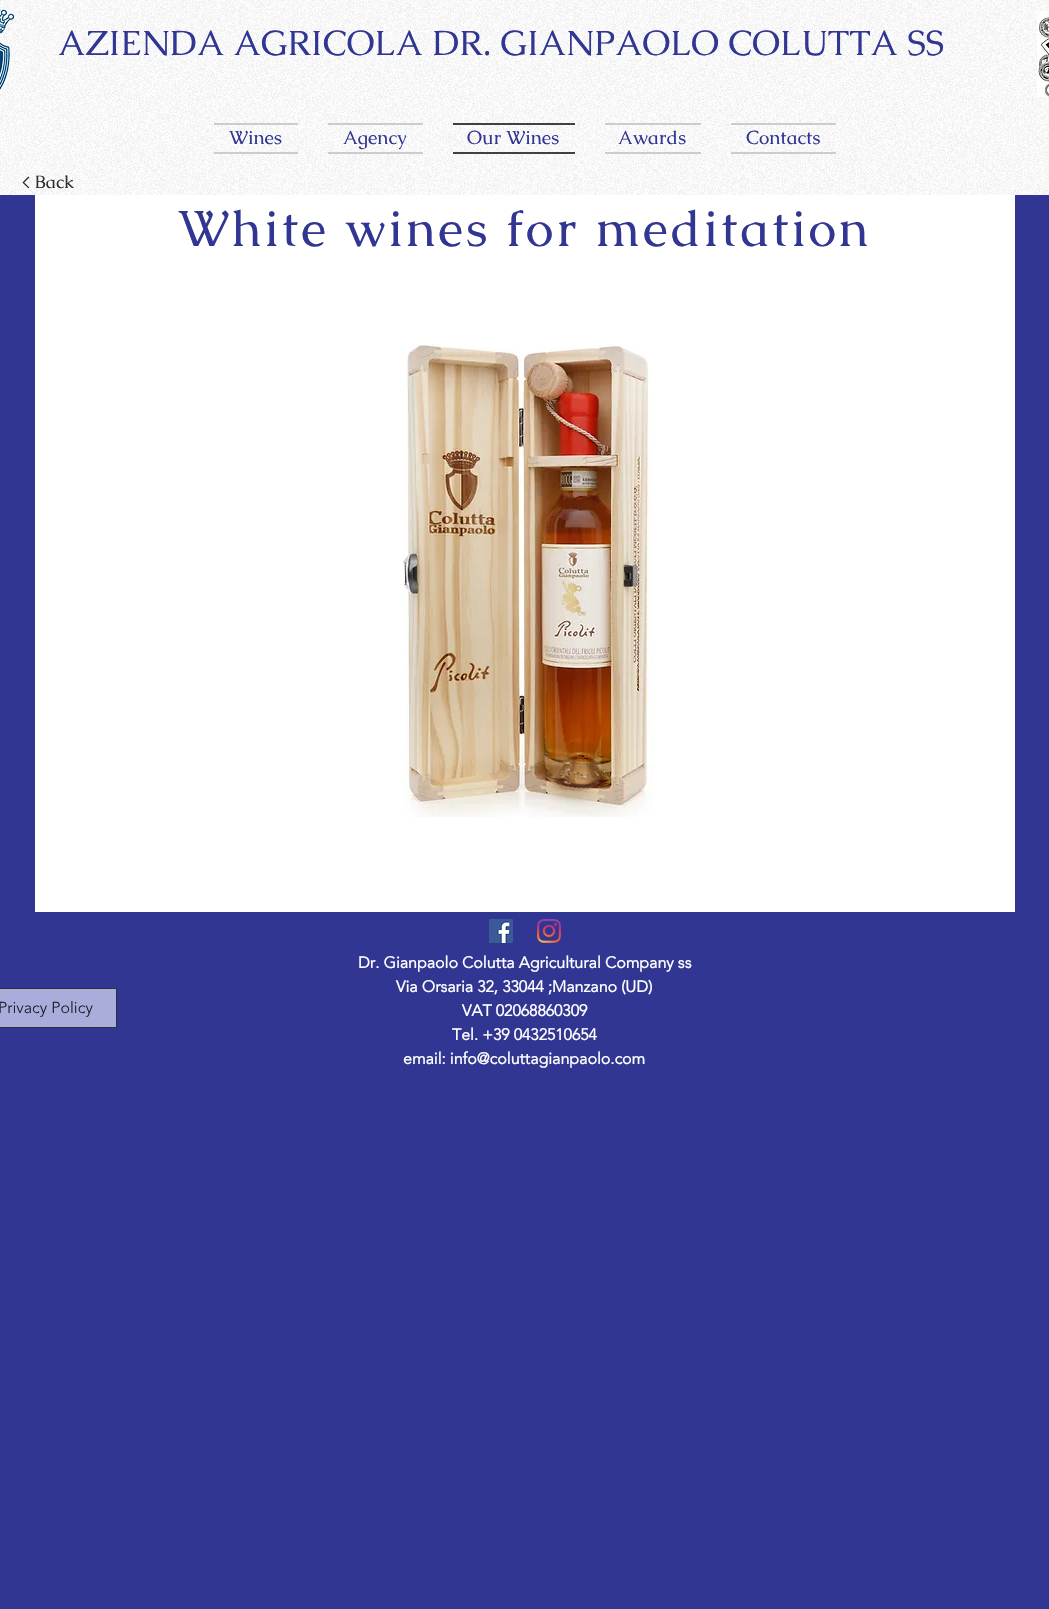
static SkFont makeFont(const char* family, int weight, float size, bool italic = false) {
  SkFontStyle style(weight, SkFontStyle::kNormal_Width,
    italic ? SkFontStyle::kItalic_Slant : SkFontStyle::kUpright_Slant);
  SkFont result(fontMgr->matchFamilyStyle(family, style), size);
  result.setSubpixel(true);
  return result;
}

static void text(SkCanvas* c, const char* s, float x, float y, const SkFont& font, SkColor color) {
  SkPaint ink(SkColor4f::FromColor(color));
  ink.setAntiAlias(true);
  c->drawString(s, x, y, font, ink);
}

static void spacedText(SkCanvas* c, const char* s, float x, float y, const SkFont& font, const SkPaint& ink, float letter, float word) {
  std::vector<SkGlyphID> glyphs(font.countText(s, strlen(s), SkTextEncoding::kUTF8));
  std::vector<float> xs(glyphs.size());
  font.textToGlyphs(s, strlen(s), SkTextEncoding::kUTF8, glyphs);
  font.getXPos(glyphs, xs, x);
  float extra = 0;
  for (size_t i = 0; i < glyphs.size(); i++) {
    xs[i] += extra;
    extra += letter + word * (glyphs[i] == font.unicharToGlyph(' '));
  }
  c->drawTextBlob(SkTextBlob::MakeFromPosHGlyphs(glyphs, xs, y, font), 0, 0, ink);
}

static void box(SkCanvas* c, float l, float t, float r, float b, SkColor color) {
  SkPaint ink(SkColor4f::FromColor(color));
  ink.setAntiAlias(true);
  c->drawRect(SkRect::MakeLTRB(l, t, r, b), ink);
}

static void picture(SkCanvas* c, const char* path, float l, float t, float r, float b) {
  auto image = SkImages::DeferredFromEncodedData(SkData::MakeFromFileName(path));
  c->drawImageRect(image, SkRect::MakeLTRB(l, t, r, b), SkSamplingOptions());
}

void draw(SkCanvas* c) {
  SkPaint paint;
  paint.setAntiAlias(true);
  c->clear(0xff313693);
  box(c, 0, 0, 1049, 195, 0xffffffff);
  picture(c, "img_01.png", 0, 0, 1049, 195);
  picture(c, "img_02.png", 0, 9, 15, 90);
  SkFont face1 = makeFont("Caudex", 400, 35);
  text(c, "AZIENDA AGRICOLA DR. GIANPAOLO COLUTTA SS", 58, 55, face1, 0xff313693);
  picture(c, "img_03.png", 1037, 11, 1049, 97);
  box(c, 214, 123, 298, 125, 0xffcccccc);
  box(c, 214, 152, 298, 154, 0xffcccccc);
  SkFont face2 = makeFont("Caudex", 400, 19);
  text(c, "Wines", 229, 144, face2, 0xff313693);
  box(c, 328, 123, 423, 125, 0xffcccccc);
  box(c, 328, 152, 423, 154, 0xffcccccc);
  text(c, "Agency", 343, 144, face2, 0xff313693);
  box(c, 453, 123, 575, 125, 0xff414141);
  box(c, 453, 152, 575, 154, 0xff414141);
  text(c, "Our Wines", 467, 144, face2, 0xff313693);
  box(c, 605, 123, 701, 125, 0xffcccccc);
  box(c, 605, 152, 701, 154, 0xffcccccc);
  text(c, "Awards", 618, 144, face2, 0xff313693);
  box(c, 731, 123, 836, 125, 0xffcccccc);
  box(c, 731, 152, 836, 154, 0xffcccccc);
  text(c, "Contacts", 746, 144, face2, 0xff313693);
  SkFont face3 = makeFont("Caudex", 400, 18);
  text(c, "< Back", 21, 188, face3, 0xff303131);
  box(c, 35, 195, 1015, 912, 0xffffffff);
  SkFont face4 = makeFont("Caudex", 400, 51);
  paint.setColor(0xff313693);
  spacedText(c, "White wines for meditation", 178, 246, face4, paint, 2.55f, 0);
  picture(c, "img_04.png", 402, 344, 654, 817);
  picture(c, "img_05.png", 489, 919, 513, 943);
  picture(c, "img_06.png", 537, 919, 561, 943);
  paint.setColor(0xffaaaddb);
  c->drawRect(SkRect::MakeLTRB(-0.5f, 988.5f, 116.5f, 1027.5f), paint);
  paint.setStyle(SkPaint::kStroke_Style);
  paint.setStrokeWidth(1);
  paint.setColor(0xff303131);
  c->drawRect(SkRect::MakeLTRB(-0.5f, 988.5f, 116.5f, 1027.5f), paint);
  SkFont face5 = makeFont("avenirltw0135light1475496", 300, 16);
  text(c, "Privacy Policy", -2, 1013, face5, 0xff141d27);
  SkFont face6 = makeFont("avenirltw0135light1475496", 700, 16);
  text(c, "Dr. Gianpaolo Colutta Agricultural Company ss", 358, 968, face6, 0xffffffff);
  text(c, "Via Orsaria 32, 33044 ;Manzano (UD)", 396, 992, face6, 0xffffffff);
  text(c, "VAT 02068860309", 462, 1016, face6, 0xffffffff);
  text(c, "Tel. +39 0432510654", 452, 1040, face6, 0xffffffff);
  text(c, "email: info@coluttagianpaolo.com", 403, 1064, face6, 0xffffffff);
}
